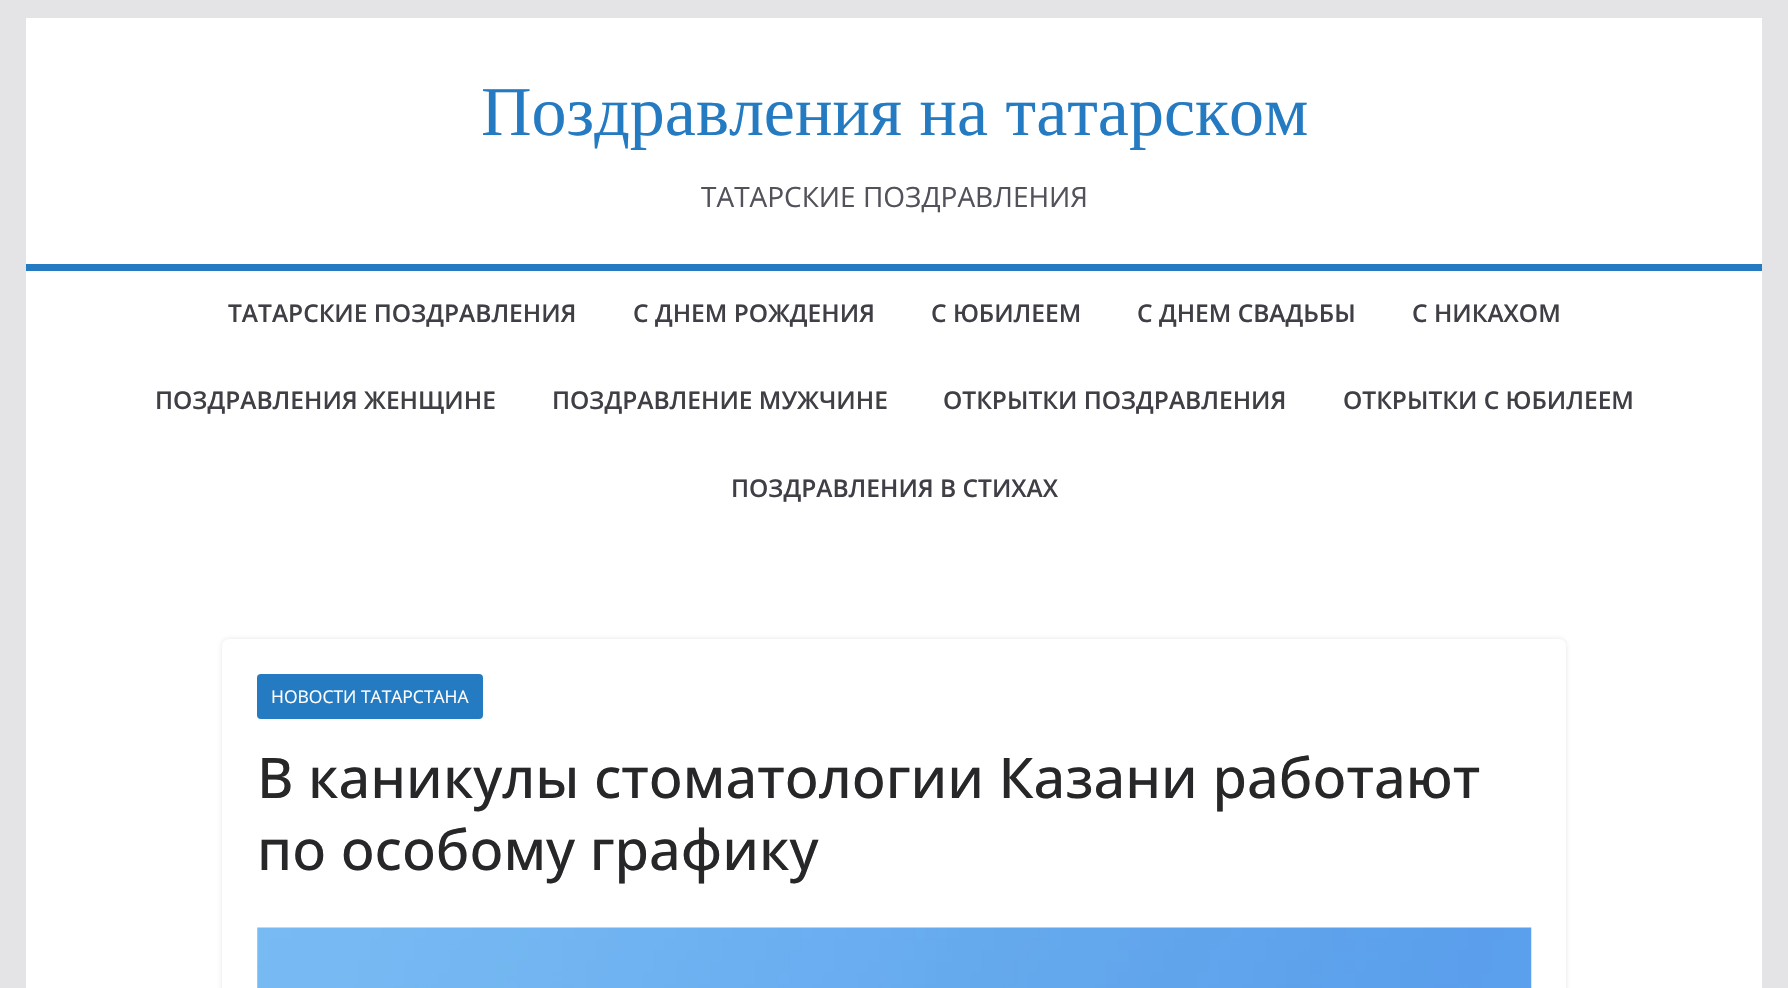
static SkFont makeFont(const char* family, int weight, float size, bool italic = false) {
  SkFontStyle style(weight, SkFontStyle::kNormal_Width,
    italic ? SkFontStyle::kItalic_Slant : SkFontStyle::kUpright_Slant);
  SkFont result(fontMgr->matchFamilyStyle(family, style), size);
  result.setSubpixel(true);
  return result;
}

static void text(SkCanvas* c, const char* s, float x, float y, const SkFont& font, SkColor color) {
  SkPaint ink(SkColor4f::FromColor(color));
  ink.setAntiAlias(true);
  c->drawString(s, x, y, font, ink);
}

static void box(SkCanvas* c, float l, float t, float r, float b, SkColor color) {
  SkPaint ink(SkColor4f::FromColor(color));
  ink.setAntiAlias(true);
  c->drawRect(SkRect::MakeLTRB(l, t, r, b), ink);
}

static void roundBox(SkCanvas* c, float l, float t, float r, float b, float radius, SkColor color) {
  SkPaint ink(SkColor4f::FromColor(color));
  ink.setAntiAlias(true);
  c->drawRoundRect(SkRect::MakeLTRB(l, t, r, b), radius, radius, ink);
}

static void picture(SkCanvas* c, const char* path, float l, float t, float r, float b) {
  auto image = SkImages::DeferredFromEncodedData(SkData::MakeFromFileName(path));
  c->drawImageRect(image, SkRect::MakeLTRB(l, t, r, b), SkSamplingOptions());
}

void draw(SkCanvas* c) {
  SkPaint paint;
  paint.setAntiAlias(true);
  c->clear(0xffe4e4e7);
  box(c, 26, 18, 1762, 988, 0xffffffff);
  SkFont face1 = makeFont("Liberation Serif", 400, 70);
  text(c, "Поздравления на татарском", 481, 135, face1, 0xff257bc1);
  SkFont face2 = makeFont("Open Sans", 400, 28);
  text(c, "ТАТАРСКИЕ ПОЗДРАВЛЕНИЯ", 701, 207, face2, 0xff52525b);
  box(c, 26, 264, 1762, 271, 0xff257bc1);
  SkFont face3 = makeFont("Open Sans", 600, 24.5f);
  text(c, "ТАТАРСКИЕ ПОЗДРАВЛЕНИЯ", 228, 322, face3, 0xff3f3f46);
  text(c, "С ДНЕМ РОЖДЕНИЯ", 633, 322, face3, 0xff3f3f46);
  text(c, "С ЮБИЛЕЕМ", 931, 322, face3, 0xff3f3f46);
  text(c, "С ДНЕМ СВАДЬБЫ", 1137, 322, face3, 0xff3f3f46);
  text(c, "С НИКАХОМ", 1412, 322, face3, 0xff3f3f46);
  text(c, "ПОЗДРАВЛЕНИЯ ЖЕНЩИНЕ", 155, 409, face3, 0xff3f3f46);
  text(c, "ПОЗДРАВЛЕНИЕ МУЖЧИНЕ", 552, 409, face3, 0xff3f3f46);
  text(c, "ОТКРЫТКИ ПОЗДРАВЛЕНИЯ", 943, 409, face3, 0xff3f3f46);
  text(c, "ОТКРЫТКИ С ЮБИЛЕЕМ", 1343, 409, face3, 0xff3f3f46);
  text(c, "ПОЗДРАВЛЕНИЯ В СТИХАХ", 731, 497, face3, 0xff3f3f46);
  c->save();
  c->clipPath(SkPathBuilder(SkPathFillType::kEvenOdd).moveTo(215, 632).lineTo(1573, 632).lineTo(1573, 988).lineTo(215, 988).close().moveTo(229, 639).lineTo(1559, 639).cubicTo(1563, 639, 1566, 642, 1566, 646).lineTo(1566, 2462).cubicTo(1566, 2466, 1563, 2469, 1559, 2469).lineTo(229, 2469).cubicTo(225, 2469, 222, 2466, 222, 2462).lineTo(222, 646).cubicTo(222, 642, 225, 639, 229, 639).close().detach(), true);
  paint.setColor(0xffe4e4e7);
  paint.setMaskFilter(SkMaskFilter::MakeBlur(kNormal_SkBlurStyle, 2));
  c->drawRoundRect(SkRect::MakeLTRB(222, 639, 1566, 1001), 7, 7, paint);
  paint.setMaskFilter(nullptr);
  c->restore();
  roundBox(c, 257, 674, 483, 719, 4, 0xff257bc1);
  SkFont face4 = makeFont("Open Sans", 400, 17.5f);
  text(c, "НОВОСТИ ТАТАРСТАНА", 271, 703, face4, 0xffffffff);
  SkFont face5 = makeFont("Open Sans", 500, 56);
  text(c, "В каникулы стоматологии Казани работают", 257, 798, face5, 0xff27272a);
  text(c, "по особому графику", 257, 870, face5, 0xff27272a);
  picture(c, "img_01.png", 257, 927, 1532, 988);
}
